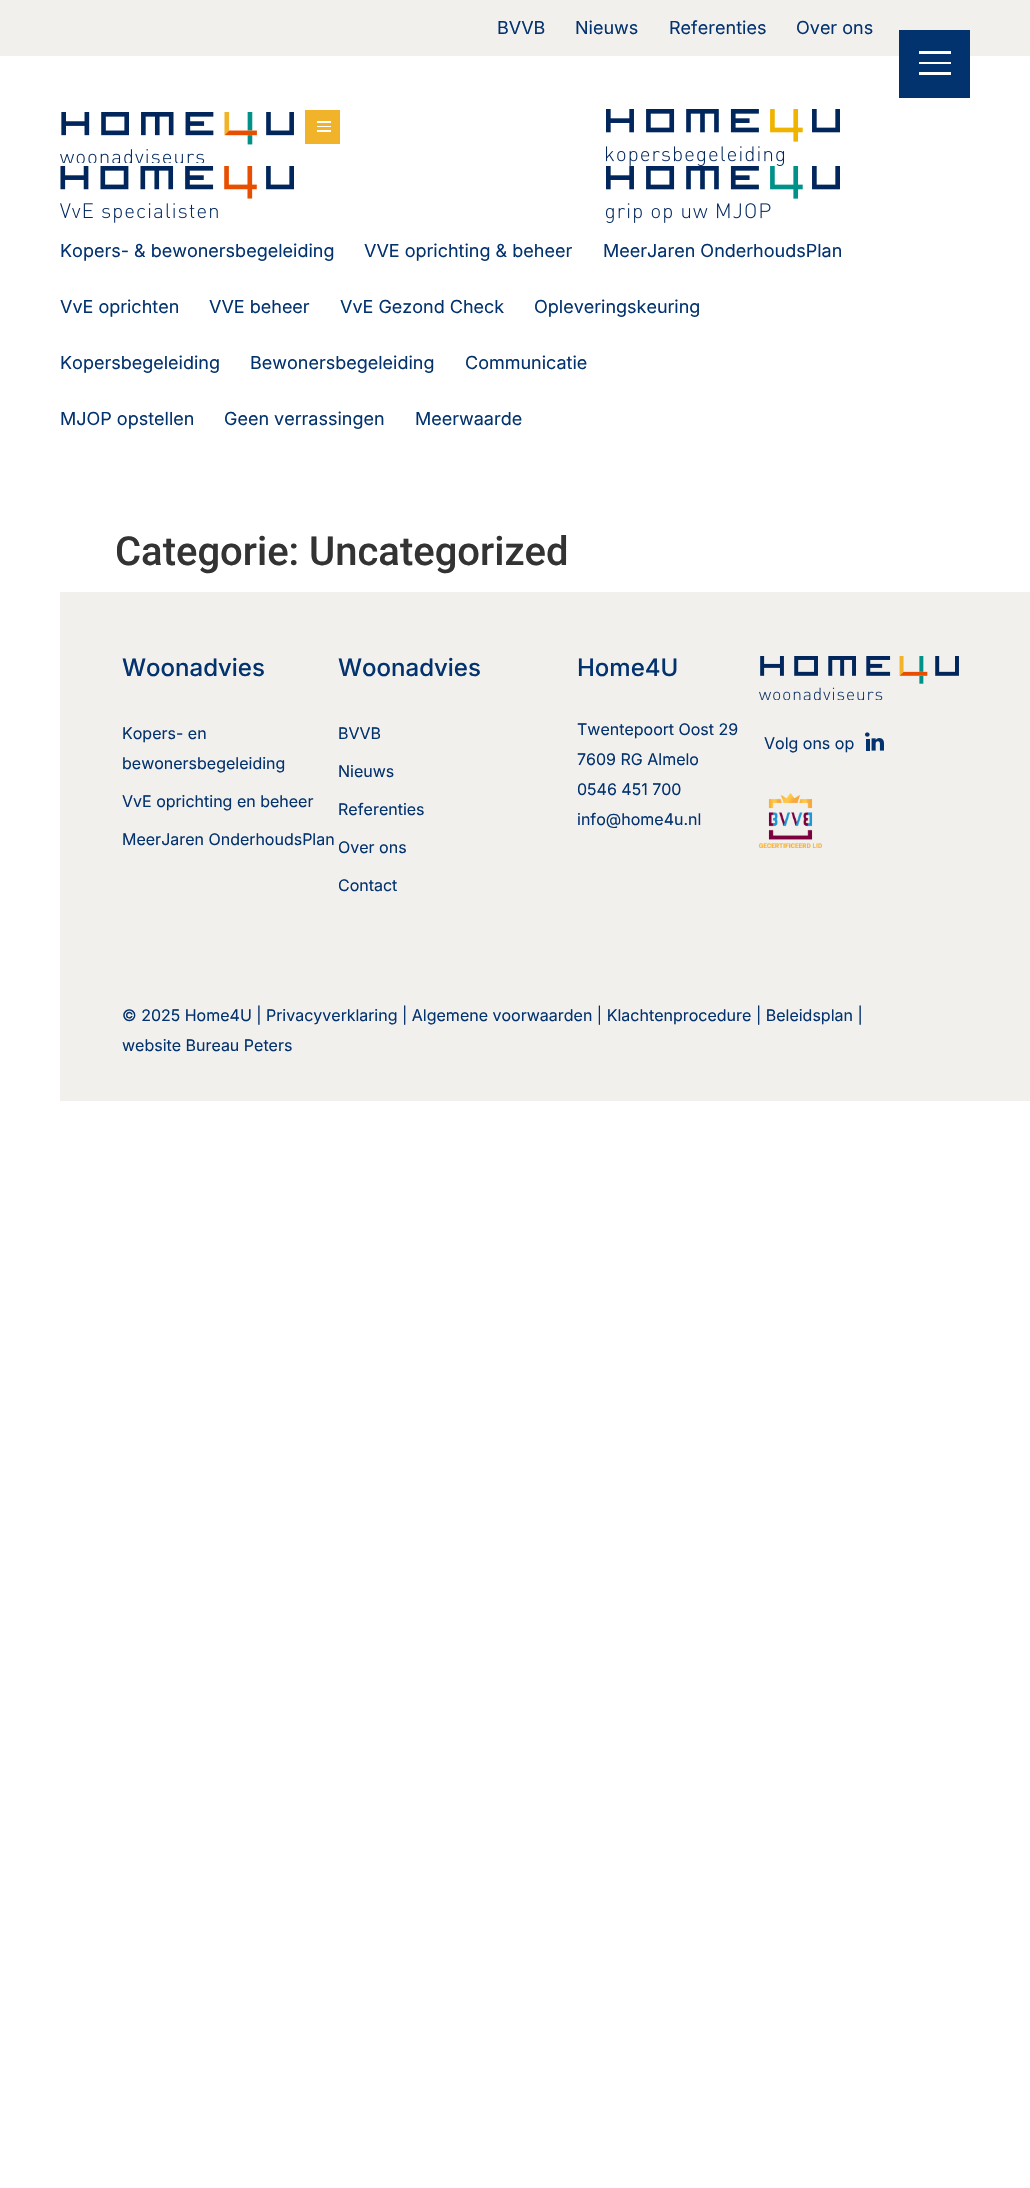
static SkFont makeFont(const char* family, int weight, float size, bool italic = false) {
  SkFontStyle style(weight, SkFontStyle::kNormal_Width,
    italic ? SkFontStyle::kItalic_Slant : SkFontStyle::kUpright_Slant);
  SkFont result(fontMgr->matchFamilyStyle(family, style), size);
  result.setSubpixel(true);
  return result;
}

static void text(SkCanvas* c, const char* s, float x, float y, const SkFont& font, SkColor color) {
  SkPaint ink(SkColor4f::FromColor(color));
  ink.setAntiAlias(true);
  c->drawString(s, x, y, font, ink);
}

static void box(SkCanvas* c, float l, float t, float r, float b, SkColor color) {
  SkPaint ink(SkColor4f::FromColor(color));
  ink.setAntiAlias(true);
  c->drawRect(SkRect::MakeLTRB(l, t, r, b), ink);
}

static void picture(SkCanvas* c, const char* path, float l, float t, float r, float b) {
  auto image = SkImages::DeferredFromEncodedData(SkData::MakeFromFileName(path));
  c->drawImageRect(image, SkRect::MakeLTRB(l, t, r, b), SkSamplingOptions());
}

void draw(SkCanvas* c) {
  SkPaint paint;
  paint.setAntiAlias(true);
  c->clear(0xffffffff);
  box(c, 0, 0, 1030, 56, 0xfff2f0ec);
  SkFont face1 = makeFont("Inter", 400, 18);
  text(c, "BVVB", 497, 34, face1, 0xff03336f);
  text(c, "Nieuws", 575, 34, face1, 0xff03336f);
  text(c, "Referenties", 669, 34, face1, 0xff03336f);
  text(c, "Over ons", 796, 34, face1, 0xff03336f);
  box(c, 899, 30, 970, 98, 0xff03336f);
  box(c, 919, 51, 951, 54, 0xffffffff);
  box(c, 919, 72, 951, 75, 0xffffffff);
  box(c, 919, 62, 951, 64, 0xffffffff);
  picture(c, "img_01.png", 60, 112, 294, 163);
  box(c, 305, 110, 340, 144, 0xfff0b32a);
  box(c, 317, 121, 331, 123, 0xffffffff);
  box(c, 317, 130, 331, 132, 0xffffffff);
  box(c, 317, 126, 331, 127, 0xffffffff);
  picture(c, "img_02.png", 606, 109, 840, 166);
  picture(c, "img_03.png", 60, 166, 294, 223);
  picture(c, "img_04.png", 606, 166, 840, 223);
  text(c, "Kopers- & bewonersbegeleiding", 60, 257, face1, 0xff03336f);
  text(c, "VVE oprichting & beheer", 364, 257, face1, 0xff03336f);
  text(c, "MeerJaren OnderhoudsPlan", 603, 257, face1, 0xff03336f);
  text(c, "VvE oprichten", 60, 313, face1, 0xff03336f);
  text(c, "VVE beheer", 209, 313, face1, 0xff03336f);
  text(c, "VvE Gezond Check", 340, 313, face1, 0xff03336f);
  text(c, "Opleveringskeuring", 534, 313, face1, 0xff03336f);
  text(c, "Kopersbegeleiding", 60, 369, face1, 0xff03336f);
  text(c, "Bewonersbegeleiding", 250, 369, face1, 0xff03336f);
  text(c, "Communicatie", 465, 369, face1, 0xff03336f);
  text(c, "MJOP opstellen", 60, 425, face1, 0xff03336f);
  text(c, "Geen verrassingen", 224, 425, face1, 0xff03336f);
  text(c, "Meerwaarde", 415, 425, face1, 0xff03336f);
  SkFont face2 = makeFont("Roboto", 500, 40);
  text(c, "Categorie: Uncategorized", 115, 565, face2, 0xff333333);
  box(c, 60, 592, 970, 1101, 0xfff2f0ec);
  SkFont face3 = makeFont("Inter", 500, 24);
  text(c, "Woonadvies", 122, 676, face3, 0xff03336f);
  SkFont face4 = makeFont("Inter", 400, 16);
  text(c, "Kopers- en", 122, 739, face4, 0xff03336f);
  text(c, "bewonersbegeleiding", 122, 769, face4, 0xff03336f);
  text(c, "VvE oprichting en beheer", 122, 807, face4, 0xff03336f);
  text(c, "MeerJaren OnderhoudsPlan", 122, 845, face4, 0xff03336f);
  text(c, "Woonadvies", 338, 676, face3, 0xff03336f);
  text(c, "BVVB", 338, 739, face4, 0xff03336f);
  text(c, "Nieuws", 338, 777, face4, 0xff03336f);
  text(c, "Referenties", 338, 815, face4, 0xff03336f);
  text(c, "Over ons", 338, 853, face4, 0xff03336f);
  text(c, "Contact", 338, 891, face4, 0xff03336f);
  text(c, "Home4U", 577, 676, face3, 0xff03336f);
  text(c, "Twentepoort Oost 29", 577, 735, face4, 0xff03336f);
  text(c, "7609 RG Almelo", 577, 765, face4, 0xff03336f);
  text(c, "0546 451 700", 577, 795, face4, 0xff03336f);
  text(c, "info@home4u.nl", 577, 825, face4, 0xff03336f);
  picture(c, "img_05.png", 759, 656, 959, 700);
  text(c, "Volg ons op", 764, 749, face4, 0xff03336f);
  picture(c, "img_06.png", 865, 732, 884, 751);
  picture(c, "img_07.png", 759, 793, 822, 848);
  box(c, 970, 592, 1030, 1101, 0xfff2f0ec);
  text(c, "© 2025 Home4U | Privacyverklaring | Algemene voorwaarden | Klachtenprocedure | Beleidsplan |", 122, 1021, face4, 0xff03336f);
  text(c, "website Bureau Peters", 122, 1051, face4, 0xff03336f);
}
